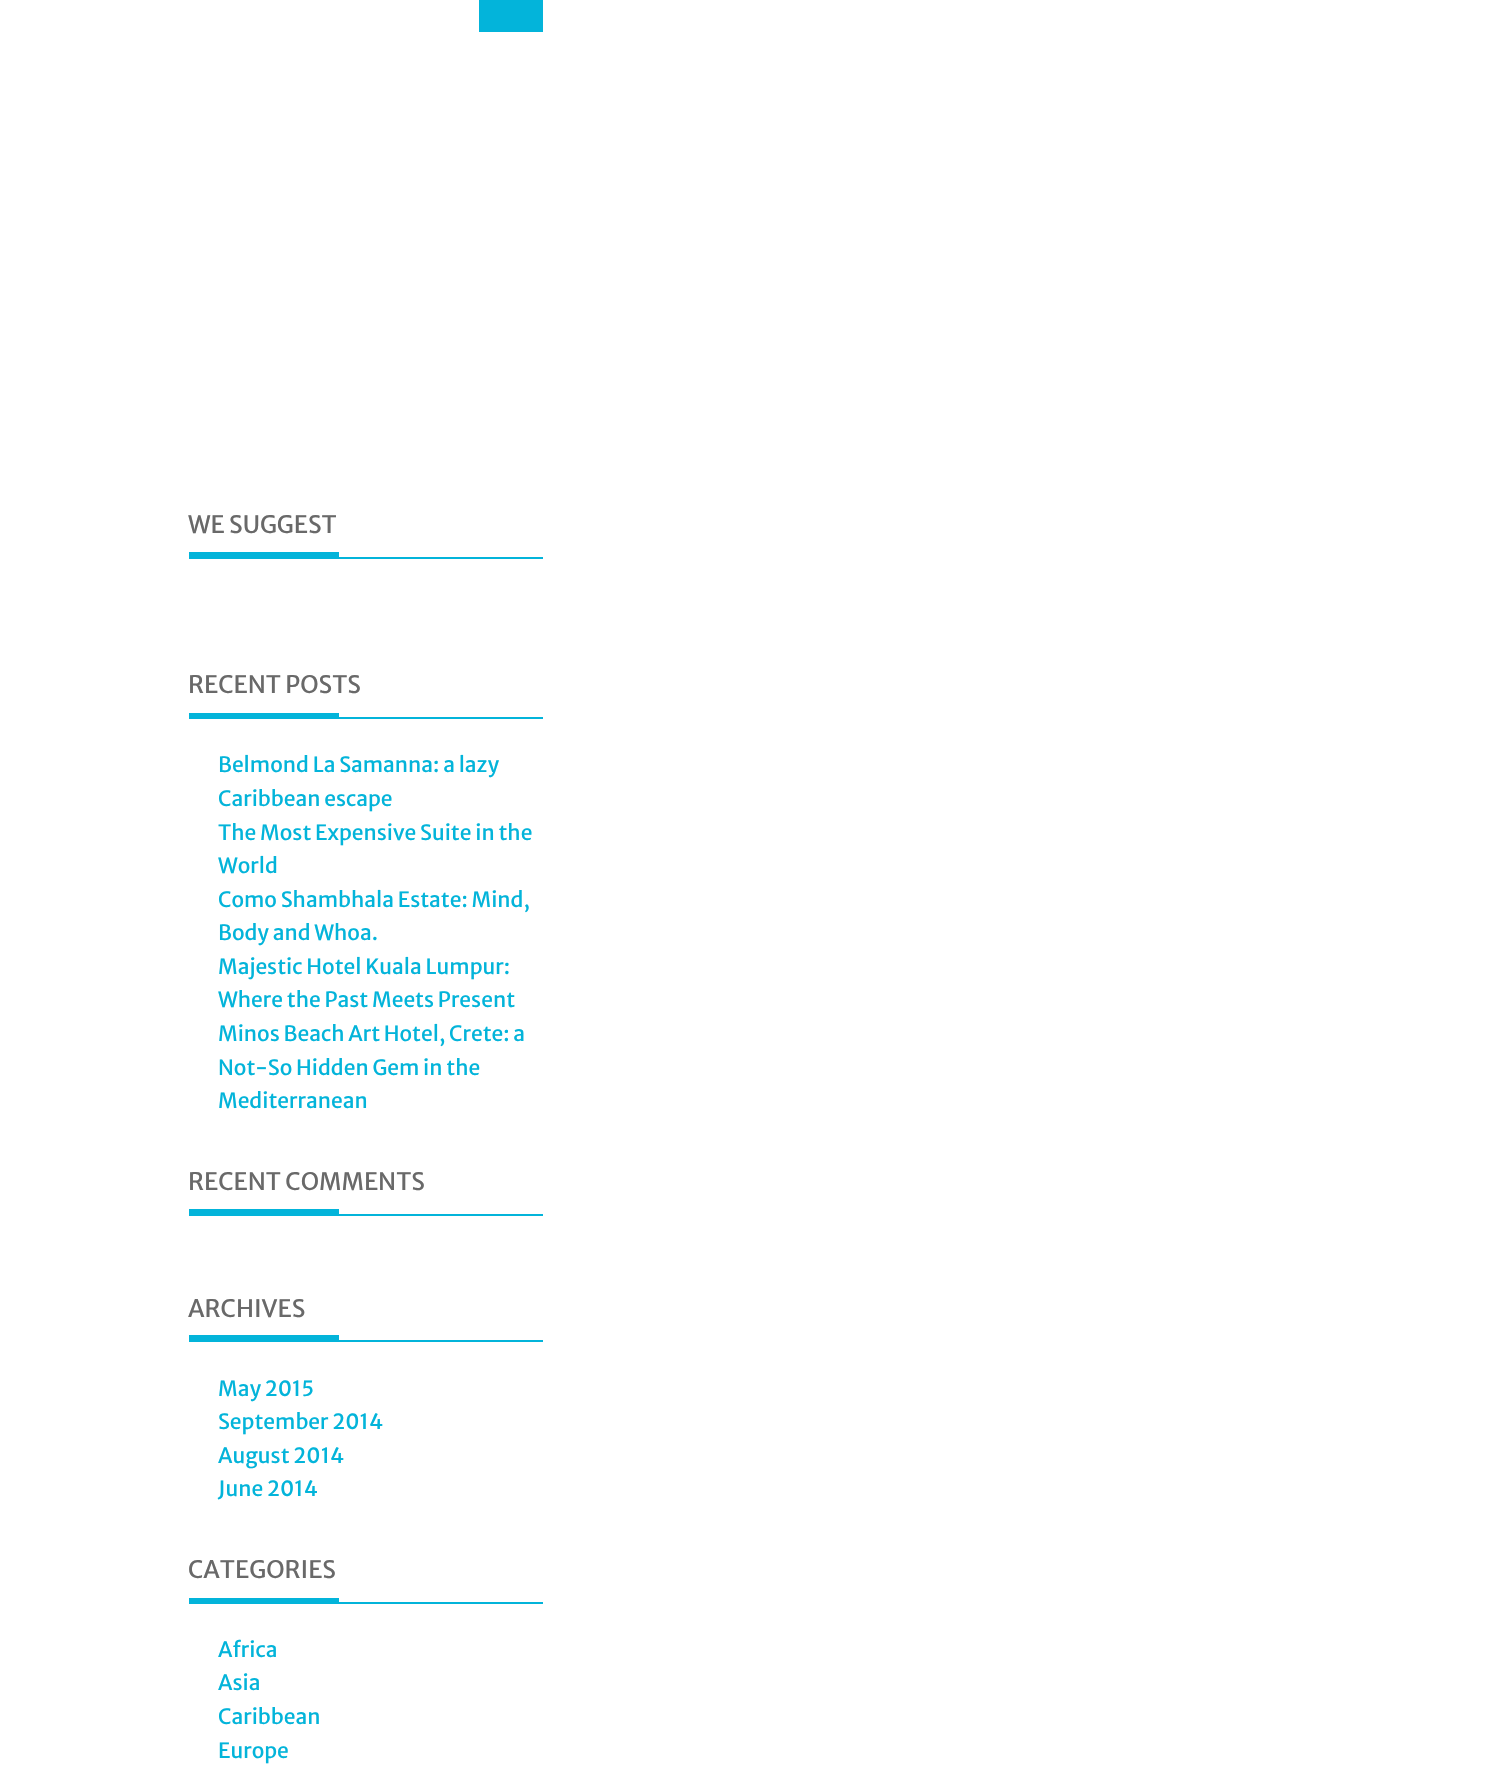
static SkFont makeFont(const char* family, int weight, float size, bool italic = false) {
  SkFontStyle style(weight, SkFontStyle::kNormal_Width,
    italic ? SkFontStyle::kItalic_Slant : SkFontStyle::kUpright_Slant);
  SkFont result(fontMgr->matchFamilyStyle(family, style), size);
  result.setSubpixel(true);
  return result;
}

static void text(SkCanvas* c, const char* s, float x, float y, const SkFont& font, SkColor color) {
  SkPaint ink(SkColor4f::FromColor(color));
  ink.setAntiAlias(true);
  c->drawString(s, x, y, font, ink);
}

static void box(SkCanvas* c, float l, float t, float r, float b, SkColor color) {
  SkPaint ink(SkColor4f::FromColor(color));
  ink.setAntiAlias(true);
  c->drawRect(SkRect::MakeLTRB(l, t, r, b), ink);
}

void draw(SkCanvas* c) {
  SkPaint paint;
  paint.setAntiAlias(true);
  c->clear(0xffffffff);
  box(c, 479, 0, 543, 32, 0xff03b4da);
  box(c, 189, 557, 543, 559, 0xff03b4da);
  SkFont face1 = makeFont("Merriweather Sans", 400, 24);
  text(c, "WE SUGGEST", 188, 533, face1, 0xff696969);
  box(c, 189, 552, 339, 557, 0xff03b4da);
  box(c, 339, 717, 543, 719, 0xff03b4da);
  text(c, "RECENT POSTS", 188, 693, face1, 0xff696969);
  box(c, 189, 713, 339, 719, 0xff03b4da);
  SkFont face2 = makeFont("Merriweather Sans", 400, 21);
  text(c, "Belmond La Samanna: a lazy", 218, 772, face2, 0xff03b4da);
  text(c, "Caribbean escape", 218, 806, face2, 0xff03b4da);
  text(c, "The Most Expensive Suite in the", 218, 840, face2, 0xff03b4da);
  text(c, "World", 218, 873, face2, 0xff03b4da);
  text(c, "Como Shambhala Estate: Mind,", 218, 907, face2, 0xff03b4da);
  text(c, "Body and Whoa.", 218, 940, face2, 0xff03b4da);
  text(c, "Majestic Hotel Kuala Lumpur:", 218, 974, face2, 0xff03b4da);
  text(c, "Where the Past Meets Present", 218, 1007, face2, 0xff03b4da);
  text(c, "Minos Beach Art Hotel, Crete: a", 218, 1041, face2, 0xff03b4da);
  text(c, "Not-So Hidden Gem in the", 218, 1075, face2, 0xff03b4da);
  text(c, "Mediterranean", 218, 1108, face2, 0xff03b4da);
  box(c, 189, 1214, 543, 1216, 0xff03b4da);
  text(c, "RECENT COMMENTS", 188, 1190, face1, 0xff696969);
  box(c, 189, 1209, 339, 1214, 0xff03b4da);
  box(c, 189, 1340, 543, 1342, 0xff03b4da);
  text(c, "ARCHIVES", 188, 1317, face1, 0xff696969);
  box(c, 189, 1335, 339, 1340, 0xff03b4da);
  text(c, "May 2015", 218, 1396, face2, 0xff03b4da);
  text(c, "September 2014", 218, 1429, face2, 0xff03b4da);
  text(c, "August 2014", 218, 1463, face2, 0xff03b4da);
  text(c, "June 2014", 218, 1496, face2, 0xff03b4da);
  box(c, 339, 1602, 543, 1604, 0xff03b4da);
  text(c, "CATEGORIES", 188, 1578, face1, 0xff696969);
  box(c, 189, 1598, 339, 1604, 0xff03b4da);
  text(c, "Africa", 218, 1657, face2, 0xff03b4da);
  text(c, "Asia", 218, 1690, face2, 0xff03b4da);
  text(c, "Caribbean", 218, 1724, face2, 0xff03b4da);
  text(c, "Europe", 218, 1758, face2, 0xff03b4da);
}
